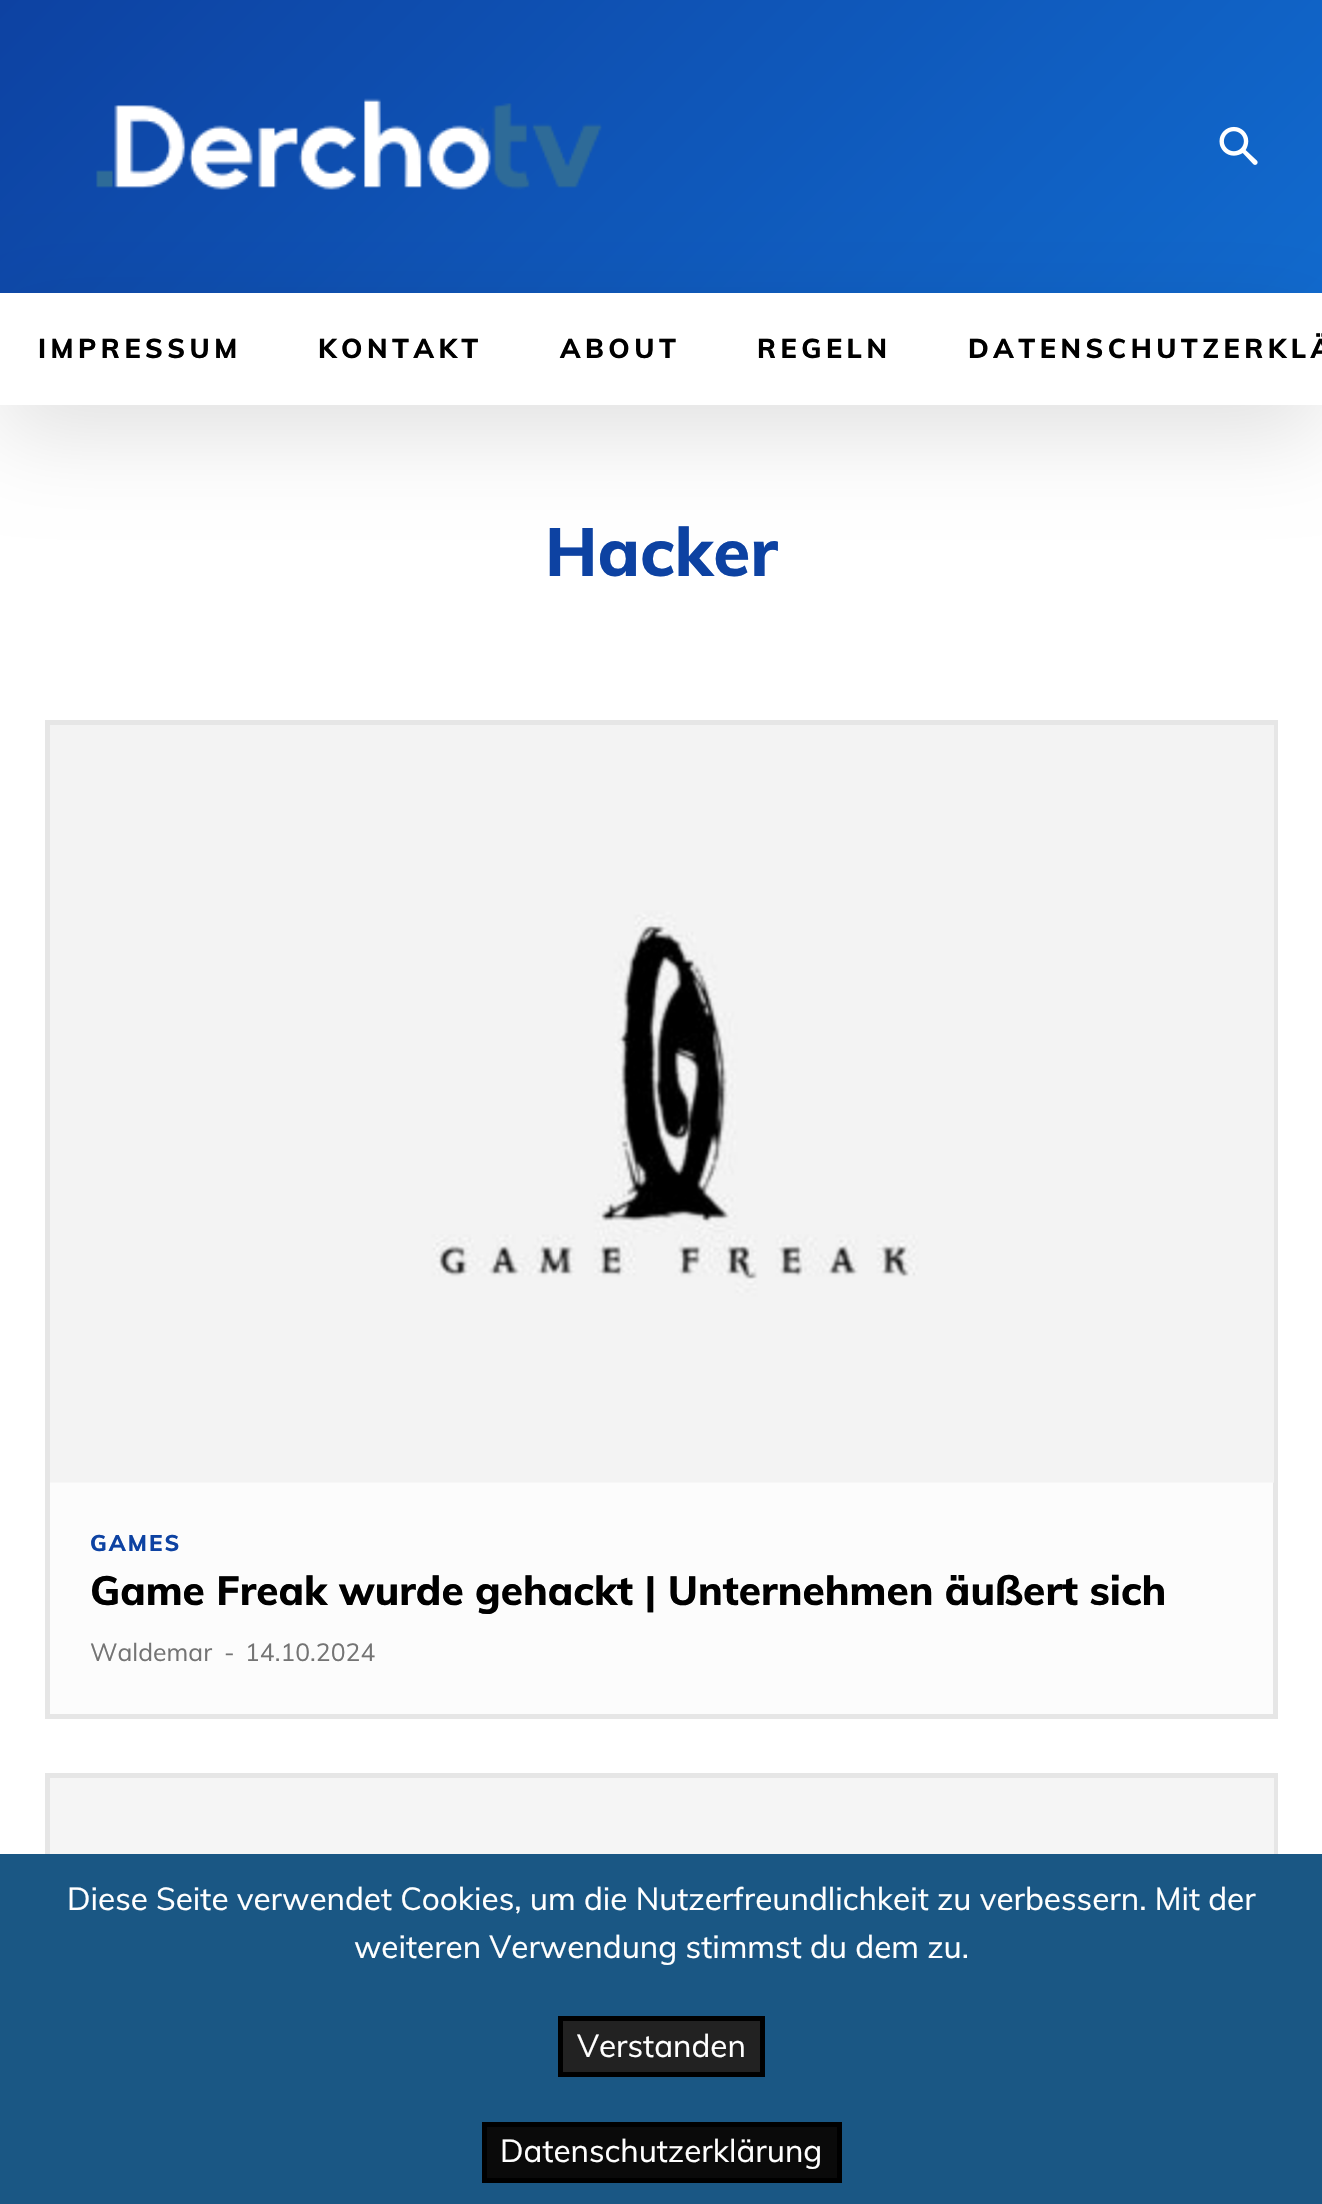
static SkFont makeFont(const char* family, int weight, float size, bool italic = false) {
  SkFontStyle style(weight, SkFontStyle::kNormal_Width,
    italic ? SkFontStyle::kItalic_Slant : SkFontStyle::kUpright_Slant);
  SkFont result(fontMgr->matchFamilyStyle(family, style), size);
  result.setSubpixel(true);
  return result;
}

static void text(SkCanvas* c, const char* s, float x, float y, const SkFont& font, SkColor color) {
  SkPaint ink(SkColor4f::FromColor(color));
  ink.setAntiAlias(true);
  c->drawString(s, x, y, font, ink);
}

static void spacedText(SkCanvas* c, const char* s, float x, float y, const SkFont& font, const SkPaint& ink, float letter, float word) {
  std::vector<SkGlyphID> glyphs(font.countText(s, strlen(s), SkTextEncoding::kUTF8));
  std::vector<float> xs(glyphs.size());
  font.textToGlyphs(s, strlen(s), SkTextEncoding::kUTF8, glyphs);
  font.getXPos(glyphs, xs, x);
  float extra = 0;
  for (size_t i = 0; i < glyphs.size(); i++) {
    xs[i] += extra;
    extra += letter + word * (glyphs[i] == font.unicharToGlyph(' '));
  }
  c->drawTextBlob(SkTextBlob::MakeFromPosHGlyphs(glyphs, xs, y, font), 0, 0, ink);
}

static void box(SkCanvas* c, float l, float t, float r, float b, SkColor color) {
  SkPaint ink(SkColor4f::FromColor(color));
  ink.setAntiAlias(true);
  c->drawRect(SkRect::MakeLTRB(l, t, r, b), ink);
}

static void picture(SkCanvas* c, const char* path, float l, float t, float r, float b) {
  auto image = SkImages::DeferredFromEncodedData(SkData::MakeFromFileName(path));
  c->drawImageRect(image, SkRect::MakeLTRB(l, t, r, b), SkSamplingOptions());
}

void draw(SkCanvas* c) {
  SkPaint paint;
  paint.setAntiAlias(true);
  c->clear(0xffffffff);
  {
    const SkColor colors[] = {0xff116ace, 0xff0d42a2};
    const float stops[] = {0, 1};
    const SkPoint ends[] = {{1065, 550}, {258, -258}};
    paint.setShader(SkGradientShader::MakeLinear(ends, colors, stops, 2, SkTileMode::kClamp));
    paint.setAlpha(255);
  }
  c->drawRect(SkRect::MakeLTRB(0, 0, 1322, 293), paint);
  picture(c, "img_01.png", 96, 98, 602, 190);
  picture(c, "img_02.png", 1219, 126, 1258, 165);
  c->save();
  c->clipPath(SkPathBuilder(SkPathFillType::kEvenOdd).moveTo(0, 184).lineTo(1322, 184).lineTo(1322, 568).lineTo(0, 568).close().moveTo(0, 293).lineTo(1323, 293).lineTo(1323, 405).lineTo(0, 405).close().detach(), true);
  paint.setShader(nullptr);
  paint.setColor(0x1f000000);
  paint.setMaskFilter(SkMaskFilter::MakeBlur(kNormal_SkBlurStyle, 45));
  c->drawRect(SkRect::MakeLTRB(0, 320, 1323, 432), paint);
  paint.setMaskFilter(nullptr);
  c->restore();
  SkFont face1 = makeFont("Muli", 800, 27);
  paint.setColor(0xff000000);
  spacedText(c, "IMPRESSUM", 38, 358, face1, paint, 4.5f, 0);
  spacedText(c, "KONTAKT", 318, 358, face1, paint, 4.5f, 0);
  spacedText(c, "ABOUT", 560, 358, face1, paint, 4.5f, 0);
  spacedText(c, "REGELN", 757, 358, face1, paint, 4.5f, 0);
  spacedText(c, "DATENSCHUTZERKLÄ", 968, 358, face1, paint, 4.5f, 0);
  SkFont face2 = makeFont("Muli", 800, 67.5f);
  text(c, "Hacker", 545, 576, face2, 0xff0d42a2);
  box(c, 50, 1482, 1273, 1714, 0xfffcfcfc);
  paint.setStyle(SkPaint::kStroke_Style);
  paint.setStrokeWidth(5);
  paint.setColor(0xffe6e6e6);
  c->drawRect(SkRect::MakeLTRB(47.5f, 722.5f, 1275.5f, 1716.5f), paint);
  picture(c, "img_03.png", 50, 725, 1274, 1483);
  SkFont face3 = makeFont("Muli", 800, 22.5f);
  paint.setStyle(SkPaint::kFill_Style);
  paint.setColor(0xff0d42a2);
  spacedText(c, "GAMES", 90, 1551, face3, paint, 2, 0);
  SkFont face4 = makeFont("Muli", 800, 40.5f);
  text(c, "Game Freak wurde gehackt | Unternehmen äußert sich", 90, 1605, face4, 0xff000000);
  SkFont face5 = makeFont("Muli", 400, 24.75f);
  text(c, "Waldemar", 90, 1661, face5, 0xff747474);
  text(c, "-", 224, 1661, face5, 0xff747474);
  text(c, "14.10.2024", 245, 1661, face5, 0xff747474);
  paint.setStyle(SkPaint::kStroke_Style);
  paint.setColor(0xffe6e6e6);
  c->drawRect(SkRect::MakeLTRB(47.5f, 1775.5f, 1275.5f, 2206.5f), paint);
  picture(c, "img_04.png", 50, 1778, 1274, 1854);
  box(c, 0, 1854, 1322, 2204, 0xff1a5784);
  SkFont face6 = makeFont("Muli", 400, 31.5f);
  text(c, "Diese Seite verwendet Cookies, um die Nutzerfreundlichkeit zu verbessern. Mit der", 67, 1910, face6, 0xffffffff);
  text(c, "weiteren Verwendung stimmst du dem zu.", 354, 1958, face6, 0xffffffff);
  paint.setStyle(SkPaint::kFill_Style);
  paint.setColor(0xff222222);
  c->drawRect(SkRect::MakeLTRB(560.5f, 2018.5f, 762.5f, 2074.5f), paint);
  paint.setStyle(SkPaint::kStroke_Style);
  paint.setColor(0xff000000);
  c->drawRect(SkRect::MakeLTRB(560.5f, 2018.5f, 762.5f, 2074.5f), paint);
  text(c, "Verstanden", 577, 2057, face6, 0xffffffff);
  paint.setStyle(SkPaint::kFill_Style);
  paint.setColor(0xff0a0a0a);
  c->drawRect(SkRect::MakeLTRB(484.5f, 2124.5f, 839.5f, 2180.5f), paint);
  paint.setStyle(SkPaint::kStroke_Style);
  paint.setColor(0xff000000);
  c->drawRect(SkRect::MakeLTRB(484.5f, 2124.5f, 839.5f, 2180.5f), paint);
  text(c, "Datenschutzerklärung", 500, 2162, face6, 0xffffffff);
}
